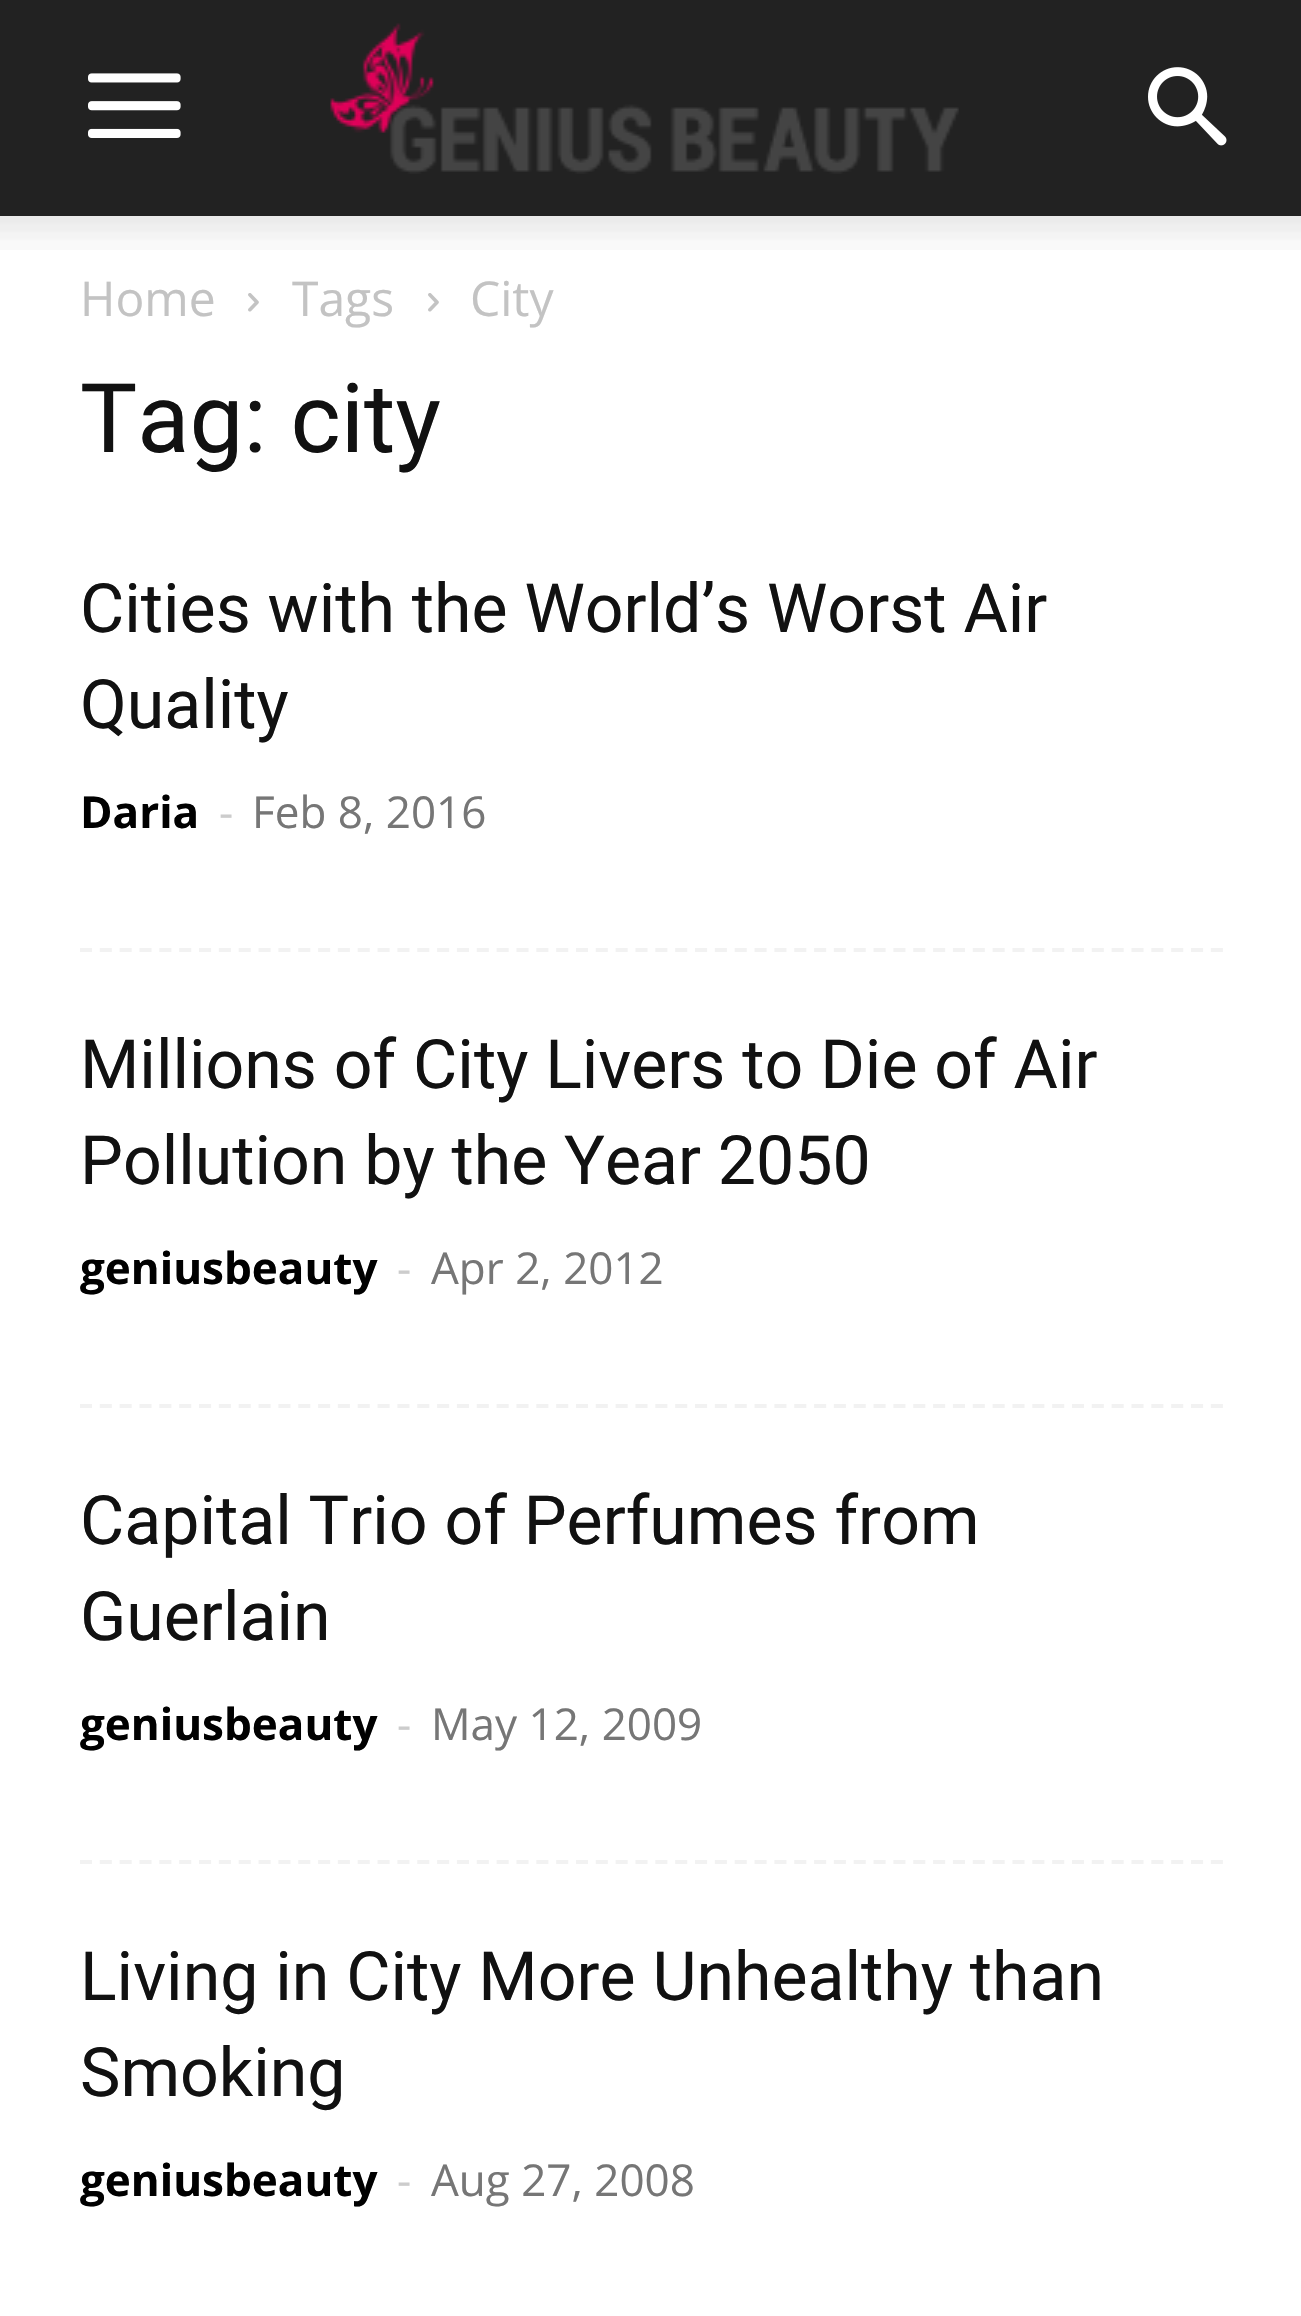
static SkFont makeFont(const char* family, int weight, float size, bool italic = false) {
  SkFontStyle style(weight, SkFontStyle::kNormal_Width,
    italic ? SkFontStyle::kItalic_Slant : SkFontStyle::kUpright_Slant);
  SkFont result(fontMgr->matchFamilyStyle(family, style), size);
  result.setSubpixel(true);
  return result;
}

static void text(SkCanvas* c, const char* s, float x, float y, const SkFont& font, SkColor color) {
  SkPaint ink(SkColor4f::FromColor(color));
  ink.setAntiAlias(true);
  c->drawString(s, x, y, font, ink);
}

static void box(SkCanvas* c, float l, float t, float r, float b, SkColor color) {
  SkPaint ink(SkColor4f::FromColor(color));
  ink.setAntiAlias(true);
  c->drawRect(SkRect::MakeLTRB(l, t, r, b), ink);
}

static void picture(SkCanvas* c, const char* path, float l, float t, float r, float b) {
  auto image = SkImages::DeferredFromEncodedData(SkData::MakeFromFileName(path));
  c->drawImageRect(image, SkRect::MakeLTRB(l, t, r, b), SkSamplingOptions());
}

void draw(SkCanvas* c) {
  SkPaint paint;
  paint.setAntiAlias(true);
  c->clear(0xffffffff);
  box(c, 0, 0, 1301, 216, 0xff222222);
  picture(c, "img_01.png", 88, 73, 181, 138);
  picture(c, "img_02.png", 330, 23, 959, 174);
  picture(c, "img_03.png", 1148, 67, 1227, 146);
  picture(c, "img_04.png", 0, 216, 1301, 250);
  SkFont face1 = makeFont("Open Sans", 400, 48);
  text(c, "Home", 80, 316, face1, 0xffc3c3c3);
  picture(c, "img_05.png", 248, 293, 259, 312);
  text(c, "Tags", 292, 316, face1, 0xffc3c3c3);
  picture(c, "img_05.png", 428, 293, 439, 312);
  text(c, "City", 470, 316, face1, 0xffc3c3c3);
  SkFont face2 = makeFont("Roboto", 400, 96);
  text(c, "Tag: city", 80, 452, face2, 0xff111111);
  paint.setStyle(SkPaint::kStroke_Style);
  paint.setStrokeWidth(4);
  paint.setColor(0xfff2f2f2);
  paint.setPathEffect(SkDashPathEffect::Make({{12, 7.84f}}, 0));
  c->drawPath(SkPathBuilder().moveTo(80, 950).lineTo(1224, 950).detach(), paint);
  paint.setPathEffect(nullptr);
  SkFont face3 = makeFont("Roboto", 400, 68);
  text(c, "Cities with the World’s Worst Air", 80, 632, face3, 0xff111111);
  text(c, "Quality", 80, 728, face3, 0xff111111);
  SkFont face4 = makeFont("Open Sans", 700, 44);
  text(c, "Daria", 80, 828, face4, 0xff000000);
  SkFont face5 = makeFont("Open Sans", 400, 44);
  text(c, "-", 219, 828, face5, 0xffcccccc);
  text(c, "Feb 8, 2016", 252, 828, face5, 0xff767676);
  paint.setPathEffect(SkDashPathEffect::Make({{12, 7.84f}}, 0));
  c->drawPath(SkPathBuilder().moveTo(80, 1406).lineTo(1224, 1406).detach(), paint);
  paint.setPathEffect(nullptr);
  text(c, "Millions of City Livers to Die of Air", 80, 1088, face3, 0xff111111);
  text(c, "Pollution by the Year 2050", 80, 1184, face3, 0xff111111);
  text(c, "geniusbeauty", 80, 1284, face4, 0xff000000);
  text(c, "-", 397, 1284, face5, 0xffcccccc);
  text(c, "Apr 2, 2012", 431, 1284, face5, 0xff767676);
  paint.setPathEffect(SkDashPathEffect::Make({{12, 7.84f}}, 0));
  c->drawPath(SkPathBuilder().moveTo(80, 1862).lineTo(1224, 1862).detach(), paint);
  paint.setPathEffect(nullptr);
  text(c, "Capital Trio of Perfumes from", 80, 1544, face3, 0xff111111);
  text(c, "Guerlain", 80, 1640, face3, 0xff111111);
  text(c, "geniusbeauty", 80, 1740, face4, 0xff000000);
  text(c, "-", 397, 1740, face5, 0xffcccccc);
  text(c, "May 12, 2009", 431, 1740, face5, 0xff767676);
  text(c, "Living in City More Unhealthy than", 80, 2000, face3, 0xff111111);
  text(c, "Smoking", 80, 2096, face3, 0xff111111);
  text(c, "geniusbeauty", 80, 2196, face4, 0xff000000);
  text(c, "-", 397, 2196, face5, 0xffcccccc);
  text(c, "Aug 27, 2008", 431, 2196, face5, 0xff767676);
}
